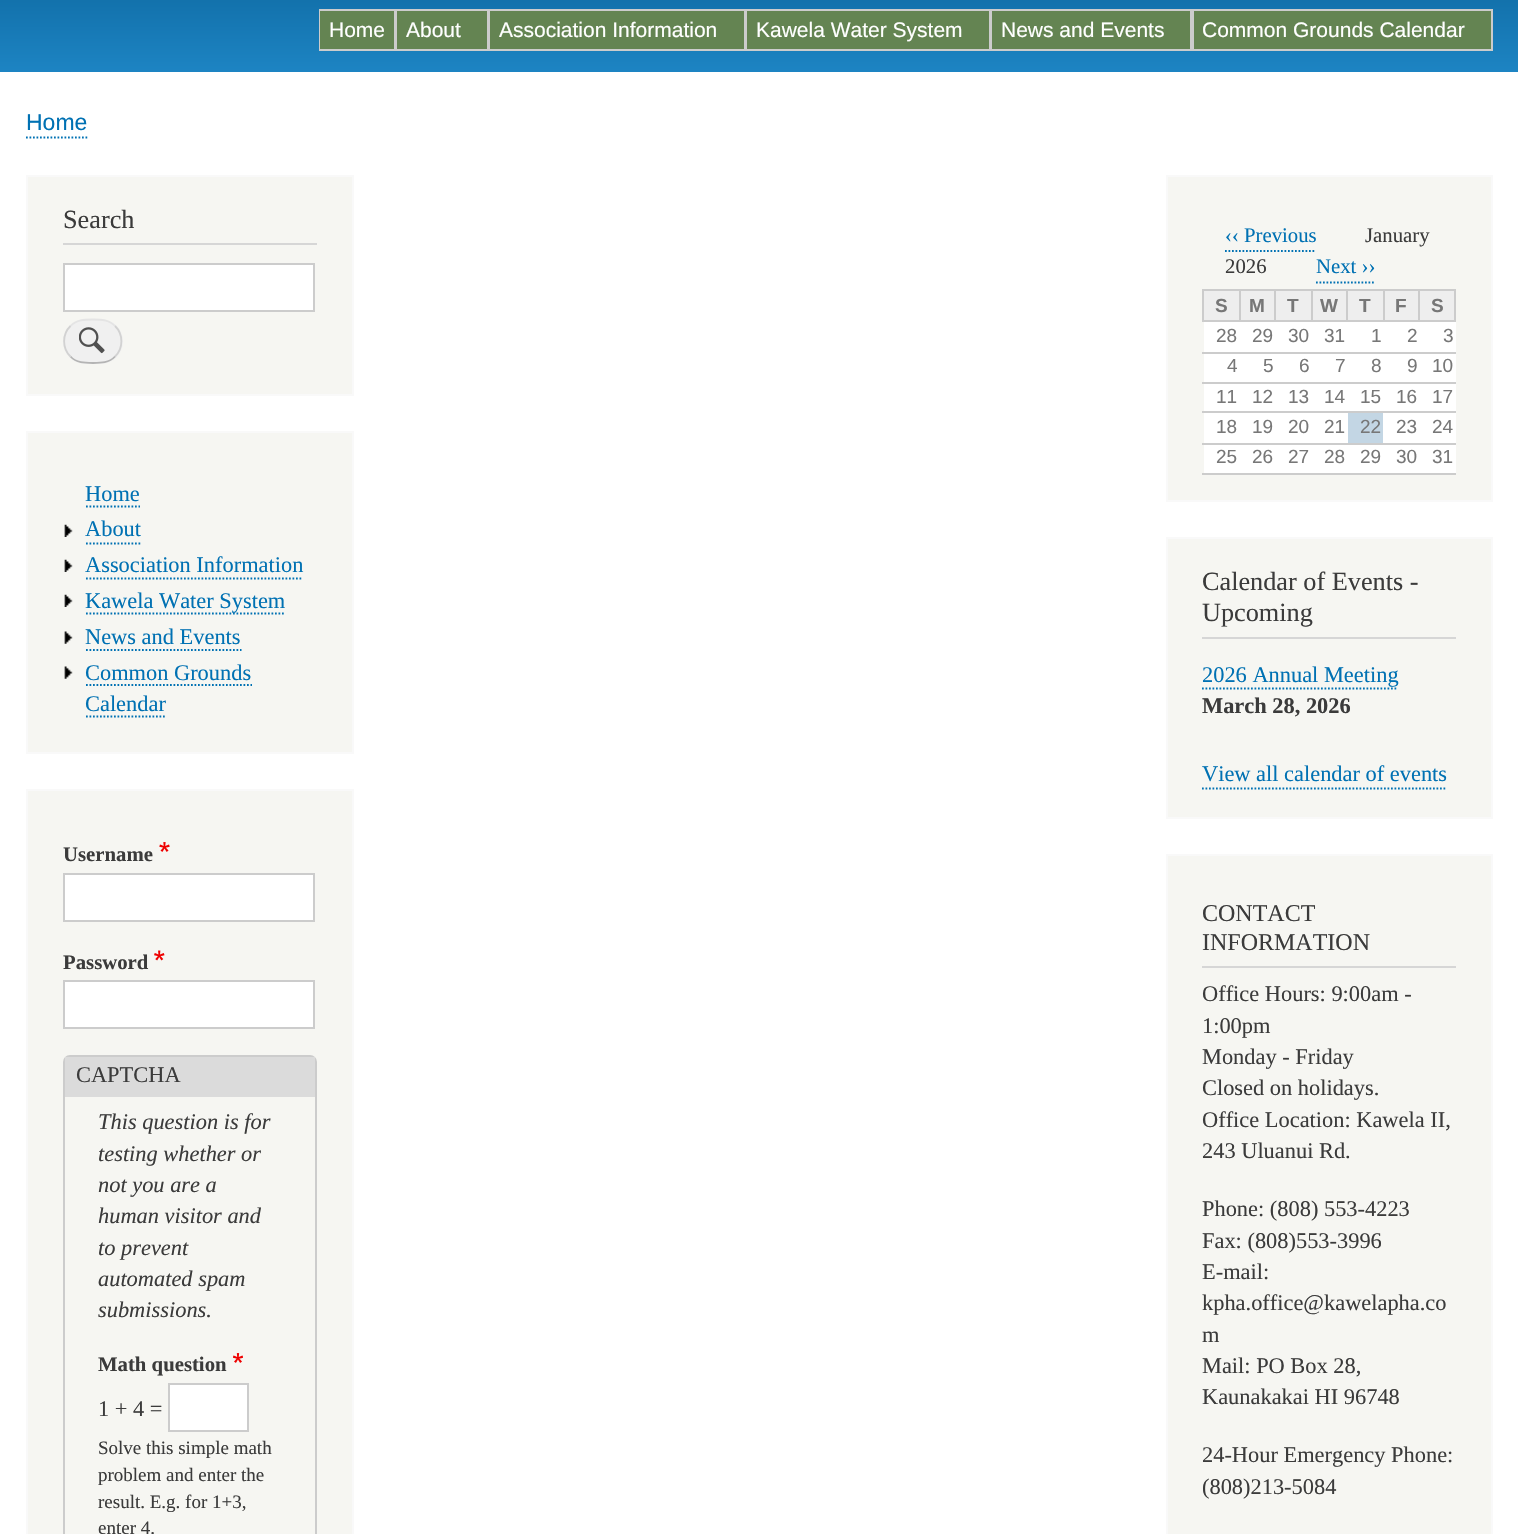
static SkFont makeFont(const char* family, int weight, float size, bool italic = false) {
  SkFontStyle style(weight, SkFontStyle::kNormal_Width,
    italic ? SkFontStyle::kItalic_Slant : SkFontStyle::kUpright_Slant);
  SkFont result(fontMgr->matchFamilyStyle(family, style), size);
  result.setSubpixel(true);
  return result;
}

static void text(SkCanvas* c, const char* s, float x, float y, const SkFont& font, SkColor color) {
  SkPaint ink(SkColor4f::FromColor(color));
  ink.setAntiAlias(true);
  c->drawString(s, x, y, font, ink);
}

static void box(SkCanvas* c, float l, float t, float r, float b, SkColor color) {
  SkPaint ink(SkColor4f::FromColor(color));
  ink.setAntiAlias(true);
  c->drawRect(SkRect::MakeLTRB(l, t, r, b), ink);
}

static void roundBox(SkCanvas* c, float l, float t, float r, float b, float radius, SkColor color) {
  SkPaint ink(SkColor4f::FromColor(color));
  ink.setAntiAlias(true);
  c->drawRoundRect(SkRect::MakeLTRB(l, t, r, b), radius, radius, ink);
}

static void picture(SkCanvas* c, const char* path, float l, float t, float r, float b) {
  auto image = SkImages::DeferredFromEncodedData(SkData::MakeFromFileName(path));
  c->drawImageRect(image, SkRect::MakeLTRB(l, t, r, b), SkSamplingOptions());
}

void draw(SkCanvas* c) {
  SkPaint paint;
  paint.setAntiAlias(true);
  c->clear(0xffffffff);
  {
    const SkColor colors[] = {0xff055a8e, 0xff1d84c3};
    const float stops[] = {0, 1};
    const SkPoint ends[] = {{760, -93}, {760, 72}};
    paint.setShader(SkGradientShader::MakeLinear(ends, colors, stops, 2, SkTileMode::kClamp));
    paint.setAlpha(255);
  }
  c->drawRect(SkRect::MakeLTRB(0, 0, 1518, 72), paint);
  paint.setStyle(SkPaint::kStroke_Style);
  paint.setStrokeWidth(2);
  paint.setShader(nullptr);
  paint.setColor(0xffcccccc);
  c->drawRect(SkRect::MakeLTRB(320, 10, 395, 50), paint);
  box(c, 320, 11, 394, 49, 0xff648452);
  SkFont face1 = makeFont("Liberation Sans", 400, 21);
  text(c, "Home", 329, 37, face1, 0xffffffff);
  c->drawRect(SkRect::MakeLTRB(397, 10, 487, 50), paint);
  box(c, 397, 11, 487, 49, 0xff648452);
  text(c, "About", 406, 37, face1, 0xffffffff);
  c->drawRect(SkRect::MakeLTRB(489, 10, 745, 50), paint);
  box(c, 490, 11, 744, 49, 0xff648452);
  text(c, "Association Information", 499, 37, face1, 0xffffffff);
  c->drawRect(SkRect::MakeLTRB(747, 10, 990, 50), paint);
  box(c, 747, 11, 989, 49, 0xff648452);
  text(c, "Kawela Water System", 756, 37, face1, 0xffffffff);
  c->drawRect(SkRect::MakeLTRB(992, 10, 1191, 50), paint);
  box(c, 992, 11, 1190, 49, 0xff648452);
  text(c, "News and Events", 1001, 37, face1, 0xffffffff);
  c->drawRect(SkRect::MakeLTRB(1193, 10, 1492, 50), paint);
  box(c, 1194, 11, 1491, 49, 0xff648452);
  text(c, "Common Grounds Calendar", 1202, 37, face1, 0xffffffff);
  SkFont face2 = makeFont("Liberation Sans", 400, 23);
  text(c, "Home", 26, 130, face2, 0xff0071b3);
  paint.setStrokeWidth(1.8f);
  paint.setColor(0xff0071b3);
  paint.setPathEffect(SkDashPathEffect::Make({{1.75f, 1.75f}}, 0));
  c->drawPath(SkPathBuilder().moveTo(26, 137.5f).lineTo(87.5f, 137.5f).detach(), paint);
  paint.setPathEffect(nullptr);
  paint.setStyle(SkPaint::kFill_Style);
  paint.setColor(0xfff6f6f2);
  c->drawRect(SkRect::MakeLTRB(27, 176, 353, 395), paint);
  paint.setStyle(SkPaint::kStroke_Style);
  paint.setStrokeWidth(2);
  paint.setColor(0xfff9f9f9);
  c->drawRect(SkRect::MakeLTRB(27, 176, 353, 395), paint);
  box(c, 63, 243, 317, 245, 0xffd6d6d6);
  SkFont face3 = makeFont("Liberation Serif", 400, 26.25f);
  text(c, "Search", 63, 228, face3, 0xff3b3b3b);
  paint.setStyle(SkPaint::kFill_Style);
  paint.setColor(0xffffffff);
  c->drawRect(SkRect::MakeLTRB(64, 264, 314, 311), paint);
  paint.setStyle(SkPaint::kStroke_Style);
  paint.setColor(0xffcccccc);
  c->drawRect(SkRect::MakeLTRB(64, 264, 314, 311), paint);
  roundBox(c, 63, 319, 123, 364, 22.5f, 0xfff0f0f0);
  picture(c, "img_01.png", 79, 327, 105, 354);
  paint.setStrokeWidth(1.8f);
  paint.setColor(0xffe4e4e4);
  c->drawPath(SkPathBuilder().moveTo(70.5f, 326).cubicTo(76.5f, 319.5f, 84.5f, 319.5f, 93, 319.5f).cubicTo(101, 319.5f, 109, 319.5f, 115, 326).detach(), paint);
  paint.setColor(0xffd2d2d2);
  c->drawPath(SkPathBuilder().moveTo(115, 326).cubicTo(123.5f, 334, 123.5f, 348.5f, 115, 356.5f).detach(), paint);
  paint.setColor(0xffb4b4b4);
  c->drawPath(SkPathBuilder().moveTo(115, 356.5f).cubicTo(109, 363, 101, 363, 93, 363).cubicTo(84.5f, 363, 76.5f, 363, 70.5f, 356.5f).detach(), paint);
  paint.setColor(0xffd2d2d2);
  c->drawPath(SkPathBuilder().moveTo(70.5f, 356.5f).cubicTo(62, 348.5f, 62, 334, 70.5f, 326).detach(), paint);
  paint.setStyle(SkPaint::kFill_Style);
  paint.setColor(0xfff6f6f2);
  c->drawRect(SkRect::MakeLTRB(27, 432, 353, 753), paint);
  paint.setStyle(SkPaint::kStroke_Style);
  paint.setStrokeWidth(2);
  paint.setColor(0xfff9f9f9);
  c->drawRect(SkRect::MakeLTRB(27, 432, 353, 753), paint);
  SkFont face4 = makeFont("Liberation Serif", 400, 22.4f);
  text(c, "Home", 85, 501, face4, 0xff0071b3);
  paint.setStrokeWidth(1.8f);
  paint.setColor(0xff0071b3);
  paint.setPathEffect(SkDashPathEffect::Make({{1.75f, 1.75f}}, 0));
  c->drawPath(SkPathBuilder().moveTo(86, 506.5f).lineTo(140, 506.5f).detach(), paint);
  paint.setPathEffect(nullptr);
  picture(c, "img_02.png", 64, 524, 73, 537);
  text(c, "About", 85, 536, face4, 0xff0071b3);
  paint.setPathEffect(SkDashPathEffect::Make({{1.75f, 1.75f}}, 0));
  c->drawPath(SkPathBuilder().moveTo(86, 543.5f).lineTo(142, 543.5f).detach(), paint);
  paint.setPathEffect(nullptr);
  picture(c, "img_02.png", 64, 559, 73, 572);
  text(c, "Association Information", 85, 572, face4, 0xff0071b3);
  paint.setPathEffect(SkDashPathEffect::Make({{1.75f, 1.75f}}, 0));
  c->drawPath(SkPathBuilder().moveTo(86, 578.5f).lineTo(303, 578.5f).detach(), paint);
  paint.setPathEffect(nullptr);
  picture(c, "img_02.png", 64, 594, 73, 607);
  paint.setPathEffect(SkDashPathEffect::Make({{1.75f, 1.75f}}, 0));
  c->drawPath(SkPathBuilder().moveTo(86, 613.5f).lineTo(285, 613.5f).detach(), paint);
  paint.setPathEffect(nullptr);
  text(c, "Kawela Water System", 85, 608, face4, 0xff0071b3);
  picture(c, "img_03.png", 64, 631, 73, 644);
  text(c, "News and Events", 85, 644, face4, 0xff0071b3);
  paint.setPathEffect(SkDashPathEffect::Make({{1.75f, 1.75f}}, 0));
  c->drawPath(SkPathBuilder().moveTo(86, 650).lineTo(241.5f, 650).detach(), paint);
  paint.setPathEffect(nullptr);
  picture(c, "img_03.png", 64, 666, 73, 679);
  text(c, "Common Grounds", 85, 680, face4, 0xff0071b3);
  paint.setPathEffect(SkDashPathEffect::Make({{1.75f, 1.75f}}, 0));
  c->drawPath(SkPathBuilder().moveTo(86, 685).lineTo(252, 685).detach(), paint);
  paint.setPathEffect(nullptr);
  text(c, "Calendar", 85, 711, face4, 0xff0071b3);
  paint.setPathEffect(SkDashPathEffect::Make({{1.75f, 1.75f}}, 0));
  c->drawPath(SkPathBuilder().moveTo(86, 716.5f).lineTo(166, 716.5f).detach(), paint);
  paint.setPathEffect(nullptr);
  paint.setStyle(SkPaint::kFill_Style);
  paint.setColor(0xfff6f6f2);
  c->drawRect(SkRect::MakeLTRB(27, 790, 353, 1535), paint);
  paint.setStyle(SkPaint::kStroke_Style);
  paint.setStrokeWidth(2);
  paint.setColor(0xfff9f9f9);
  c->drawRect(SkRect::MakeLTRB(27, 790, 353, 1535), paint);
  SkFont face5 = makeFont("Liberation Serif", 700, 20.75f);
  text(c, "Username", 63, 861, face5, 0xff3b3b3b);
  picture(c, "img_04.png", 159, 842, 170, 852);
  paint.setStyle(SkPaint::kFill_Style);
  paint.setColor(0xffffffff);
  c->drawRect(SkRect::MakeLTRB(64, 874, 314, 921), paint);
  paint.setStyle(SkPaint::kStroke_Style);
  paint.setColor(0xffcccccc);
  c->drawRect(SkRect::MakeLTRB(64, 874, 314, 921), paint);
  text(c, "Password", 63, 969, face5, 0xff3b3b3b);
  picture(c, "img_05.png", 154, 950, 165, 961);
  paint.setStyle(SkPaint::kFill_Style);
  paint.setColor(0xffffffff);
  c->drawRect(SkRect::MakeLTRB(64, 981, 314, 1028), paint);
  paint.setStyle(SkPaint::kStroke_Style);
  paint.setColor(0xffcccccc);
  c->drawRect(SkRect::MakeLTRB(64, 981, 314, 1028), paint);
  c->drawRoundRect(SkRect::MakeLTRB(64, 1056, 316, 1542), 6, 6, paint);
  box(c, 65, 1057, 315, 1097, 0xffdbdbdb);
  text(c, "CAPTCHA", 76, 1082, face4, 0xff3b3b3b);
  SkFont face6 = makeFont("Liberation Serif", 400, 22.4f, true);
  text(c, "This question is for", 98, 1129, face6, 0xff3b3b3b);
  text(c, "testing whether or", 98, 1161, face6, 0xff3b3b3b);
  text(c, "not you are a", 98, 1192, face6, 0xff3b3b3b);
  text(c, "human visitor and", 98, 1223, face6, 0xff3b3b3b);
  text(c, "to prevent", 98, 1255, face6, 0xff3b3b3b);
  text(c, "automated spam", 98, 1286, face6, 0xff3b3b3b);
  text(c, "submissions.", 98, 1317, face6, 0xff3b3b3b);
  text(c, "Math question", 98, 1371, face5, 0xff3b3b3b);
  picture(c, "img_06.png", 233, 1353, 243, 1363);
  text(c, "1 + 4 =", 98, 1416, face4, 0xff3b3b3b);
  paint.setStyle(SkPaint::kFill_Style);
  paint.setColor(0xffffffff);
  c->drawRect(SkRect::MakeLTRB(169, 1384, 248, 1431), paint);
  paint.setStyle(SkPaint::kStroke_Style);
  paint.setColor(0xffcccccc);
  c->drawRect(SkRect::MakeLTRB(169, 1384, 248, 1431), paint);
  SkFont face7 = makeFont("Liberation Serif", 400, 19);
  text(c, "Solve this simple math", 98, 1454, face7, 0xff3b3b3b);
  text(c, "problem and enter the", 98, 1481, face7, 0xff3b3b3b);
  text(c, "result. E.g. for 1+3,", 98, 1508, face7, 0xff3b3b3b);
  text(c, "enter 4.", 98, 1534, face7, 0xff3b3b3b);
  paint.setStyle(SkPaint::kFill_Style);
  paint.setColor(0xfff6f6f2);
  c->drawRect(SkRect::MakeLTRB(1167, 176, 1492, 501), paint);
  paint.setStyle(SkPaint::kStroke_Style);
  paint.setColor(0xfff9f9f9);
  c->drawRect(SkRect::MakeLTRB(1167, 176, 1492, 501), paint);
  paint.setStrokeWidth(1.8f);
  paint.setColor(0xff0071b3);
  paint.setPathEffect(SkDashPathEffect::Make({{1.75f, 1.75f}}, 0));
  c->drawPath(SkPathBuilder().moveTo(1225, 251).lineTo(1316, 251).detach(), paint);
  paint.setPathEffect(nullptr);
  SkFont face8 = makeFont("Liberation Serif", 400, 20.75f);
  text(c, "‹‹ Previous", 1225, 242, face8, 0xff0071b3);
  text(c, "January", 1365, 242, face8, 0xff3b3b3b);
  text(c, "2026", 1225, 273, face8, 0xff3b3b3b);
  paint.setPathEffect(SkDashPathEffect::Make({{1.75f, 1.75f}}, 0));
  c->drawPath(SkPathBuilder().moveTo(1316, 282.5f).lineTo(1375.5f, 282.5f).detach(), paint);
  paint.setPathEffect(nullptr);
  text(c, "Next ››", 1316, 273, face8, 0xff0071b3);
  box(c, 1204, 291, 1239, 320, 0xffeeeeee);
  box(c, 1418, 289, 1456, 291, 0xffcccccc);
  box(c, 1454, 289, 1456, 322, 0xffcccccc);
  box(c, 1418, 320, 1456, 322, 0xffcccccc);
  box(c, 1418, 289, 1420, 322, 0xffcccccc);
  box(c, 1383, 289, 1419, 291, 0xffcccccc);
  box(c, 1383, 320, 1419, 322, 0xffcccccc);
  box(c, 1383, 289, 1385, 322, 0xffcccccc);
  box(c, 1346, 289, 1384, 291, 0xffcccccc);
  box(c, 1346, 320, 1384, 322, 0xffcccccc);
  box(c, 1346, 289, 1348, 322, 0xffcccccc);
  box(c, 1311, 289, 1348, 291, 0xffcccccc);
  box(c, 1311, 320, 1348, 322, 0xffcccccc);
  box(c, 1311, 289, 1313, 322, 0xffcccccc);
  box(c, 1274, 289, 1313, 291, 0xffcccccc);
  box(c, 1274, 320, 1313, 322, 0xffcccccc);
  box(c, 1274, 289, 1276, 322, 0xffcccccc);
  box(c, 1239, 289, 1276, 291, 0xffcccccc);
  box(c, 1239, 320, 1276, 322, 0xffcccccc);
  box(c, 1239, 289, 1241, 322, 0xffcccccc);
  box(c, 1202, 289, 1241, 291, 0xffcccccc);
  box(c, 1202, 320, 1241, 322, 0xffcccccc);
  box(c, 1202, 289, 1204, 322, 0xffcccccc);
  SkFont face9 = makeFont("Liberation Sans", 700, 19);
  text(c, "S", 1215, 312, face9, 0xff777777);
  box(c, 1241, 291, 1274, 320, 0xffeeeeee);
  text(c, "M", 1249, 312, face9, 0xff777777);
  box(c, 1276, 291, 1311, 320, 0xffeeeeee);
  text(c, "T", 1287, 312, face9, 0xff777777);
  box(c, 1313, 291, 1346, 320, 0xffeeeeee);
  text(c, "W", 1320, 312, face9, 0xff777777);
  box(c, 1348, 291, 1383, 320, 0xffeeeeee);
  text(c, "T", 1359, 312, face9, 0xff777777);
  box(c, 1385, 291, 1418, 320, 0xffeeeeee);
  text(c, "F", 1395, 312, face9, 0xff777777);
  box(c, 1420, 291, 1454, 320, 0xffeeeeee);
  text(c, "S", 1431, 312, face9, 0xff777777);
  box(c, 1204, 322, 1456, 352, 0xffffffff);
  box(c, 1202, 352, 1456, 354, 0xffcccccc);
  SkFont face10 = makeFont("Liberation Sans", 400, 19);
  text(c, "28", 1216, 342, face10, 0xff777777);
  text(c, "29", 1252, 342, face10, 0xff777777);
  text(c, "30", 1288, 342, face10, 0xff777777);
  text(c, "31", 1324, 342, face10, 0xff777777);
  text(c, "1", 1371, 342, face10, 0xff777777);
  text(c, "2", 1407, 342, face10, 0xff777777);
  text(c, "3", 1443, 342, face10, 0xff777777);
  box(c, 1204, 354, 1456, 382, 0xffffffff);
  box(c, 1202, 382, 1456, 384, 0xffcccccc);
  text(c, "4", 1227, 372, face10, 0xff777777);
  text(c, "5", 1263, 372, face10, 0xff777777);
  text(c, "6", 1299, 372, face10, 0xff777777);
  text(c, "7", 1335, 372, face10, 0xff777777);
  text(c, "8", 1371, 372, face10, 0xff777777);
  text(c, "9", 1407, 372, face10, 0xff777777);
  text(c, "10", 1432, 372, face10, 0xff777777);
  box(c, 1204, 384, 1456, 411, 0xffffffff);
  box(c, 1202, 411, 1456, 413, 0xffcccccc);
  text(c, "11", 1216, 403, face10, 0xff777777);
  text(c, "12", 1252, 403, face10, 0xff777777);
  text(c, "13", 1288, 403, face10, 0xff777777);
  text(c, "14", 1324, 403, face10, 0xff777777);
  text(c, "15", 1360, 403, face10, 0xff777777);
  text(c, "16", 1396, 403, face10, 0xff777777);
  text(c, "17", 1432, 403, face10, 0xff777777);
  box(c, 1204, 413, 1456, 443, 0xffffffff);
  box(c, 1202, 443, 1456, 445, 0xffcccccc);
  text(c, "18", 1216, 433, face10, 0xff777777);
  text(c, "19", 1252, 433, face10, 0xff777777);
  text(c, "20", 1288, 433, face10, 0xff777777);
  text(c, "21", 1324, 433, face10, 0xff777777);
  box(c, 1348, 413, 1383, 443, 0xffc3d6e4);
  text(c, "22", 1360, 433, face10, 0xff777777);
  text(c, "23", 1396, 433, face10, 0xff777777);
  text(c, "24", 1432, 433, face10, 0xff777777);
  box(c, 1204, 445, 1456, 473, 0xffffffff);
  box(c, 1202, 473, 1456, 475, 0xffcccccc);
  text(c, "25", 1216, 463, face10, 0xff777777);
  text(c, "26", 1252, 463, face10, 0xff777777);
  text(c, "27", 1288, 463, face10, 0xff777777);
  text(c, "28", 1324, 463, face10, 0xff777777);
  text(c, "29", 1360, 463, face10, 0xff777777);
  text(c, "30", 1396, 463, face10, 0xff777777);
  text(c, "31", 1432, 463, face10, 0xff777777);
  paint.setStyle(SkPaint::kFill_Style);
  paint.setColor(0xfff6f6f2);
  c->drawRect(SkRect::MakeLTRB(1167, 538, 1492, 818), paint);
  paint.setStyle(SkPaint::kStroke_Style);
  paint.setStrokeWidth(2);
  paint.setColor(0xfff9f9f9);
  c->drawRect(SkRect::MakeLTRB(1167, 538, 1492, 818), paint);
  box(c, 1202, 637, 1456, 639, 0xffd6d6d6);
  text(c, "Calendar of Events -", 1202, 590, face3, 0xff3b3b3b);
  text(c, "Upcoming", 1202, 621, face3, 0xff3b3b3b);
  text(c, "2026 Annual Meeting", 1202, 682, face4, 0xff0071b3);
  paint.setStrokeWidth(1.8f);
  paint.setColor(0xff0071b3);
  paint.setPathEffect(SkDashPathEffect::Make({{1.75f, 1.75f}}, 0));
  c->drawPath(SkPathBuilder().moveTo(1202, 688.5f).lineTo(1398, 688.5f).detach(), paint);
  paint.setPathEffect(nullptr);
  SkFont face11 = makeFont("Liberation Serif", 700, 22.4f);
  text(c, "March 28, 2026", 1202, 713, face11, 0xff3b3b3b);
  text(c, "View all calendar of events", 1202, 781, face4, 0xff0071b3);
  paint.setPathEffect(SkDashPathEffect::Make({{1.75f, 1.75f}}, 0));
  c->drawPath(SkPathBuilder().moveTo(1202, 788.5f).lineTo(1447, 788.5f).detach(), paint);
  paint.setPathEffect(nullptr);
  paint.setStyle(SkPaint::kFill_Style);
  paint.setColor(0xfff6f6f2);
  c->drawRect(SkRect::MakeLTRB(1167, 855, 1492, 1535), paint);
  paint.setStyle(SkPaint::kStroke_Style);
  paint.setStrokeWidth(2);
  paint.setColor(0xfff9f9f9);
  c->drawRect(SkRect::MakeLTRB(1167, 855, 1492, 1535), paint);
  box(c, 1202, 966, 1456, 968, 0xffd6d6d6);
  SkFont face12 = makeFont("Liberation Serif", 400, 24);
  text(c, "CONTACT", 1202, 921, face12, 0xff3b3b3b);
  text(c, "INFORMATION", 1202, 950, face12, 0xff3b3b3b);
  text(c, "Office Hours: 9:00am -", 1202, 1001, face4, 0xff3b3b3b);
  text(c, "1:00pm", 1202, 1033, face4, 0xff3b3b3b);
  text(c, "Monday - Friday", 1202, 1064, face4, 0xff3b3b3b);
  text(c, "Closed on holidays.", 1202, 1095, face4, 0xff3b3b3b);
  text(c, "Office Location: Kawela II,", 1202, 1127, face4, 0xff3b3b3b);
  text(c, "243 Uluanui Rd.", 1202, 1158, face4, 0xff3b3b3b);
  text(c, "Phone: (808) 553-4223", 1202, 1216, face4, 0xff3b3b3b);
  text(c, "Fax: (808)553-3996", 1202, 1248, face4, 0xff3b3b3b);
  text(c, "E-mail:", 1202, 1279, face4, 0xff3b3b3b);
  text(c, "kpha.office@kawelapha.co", 1202, 1310, face4, 0xff3b3b3b);
  text(c, "m", 1202, 1342, face4, 0xff3b3b3b);
  text(c, "Mail: PO Box 28,", 1202, 1373, face4, 0xff3b3b3b);
  text(c, "Kaunakakai HI 96748", 1202, 1404, face4, 0xff3b3b3b);
  text(c, "24-Hour Emergency Phone:", 1202, 1462, face4, 0xff3b3b3b);
  text(c, "(808)213-5084", 1202, 1494, face4, 0xff3b3b3b);
}
